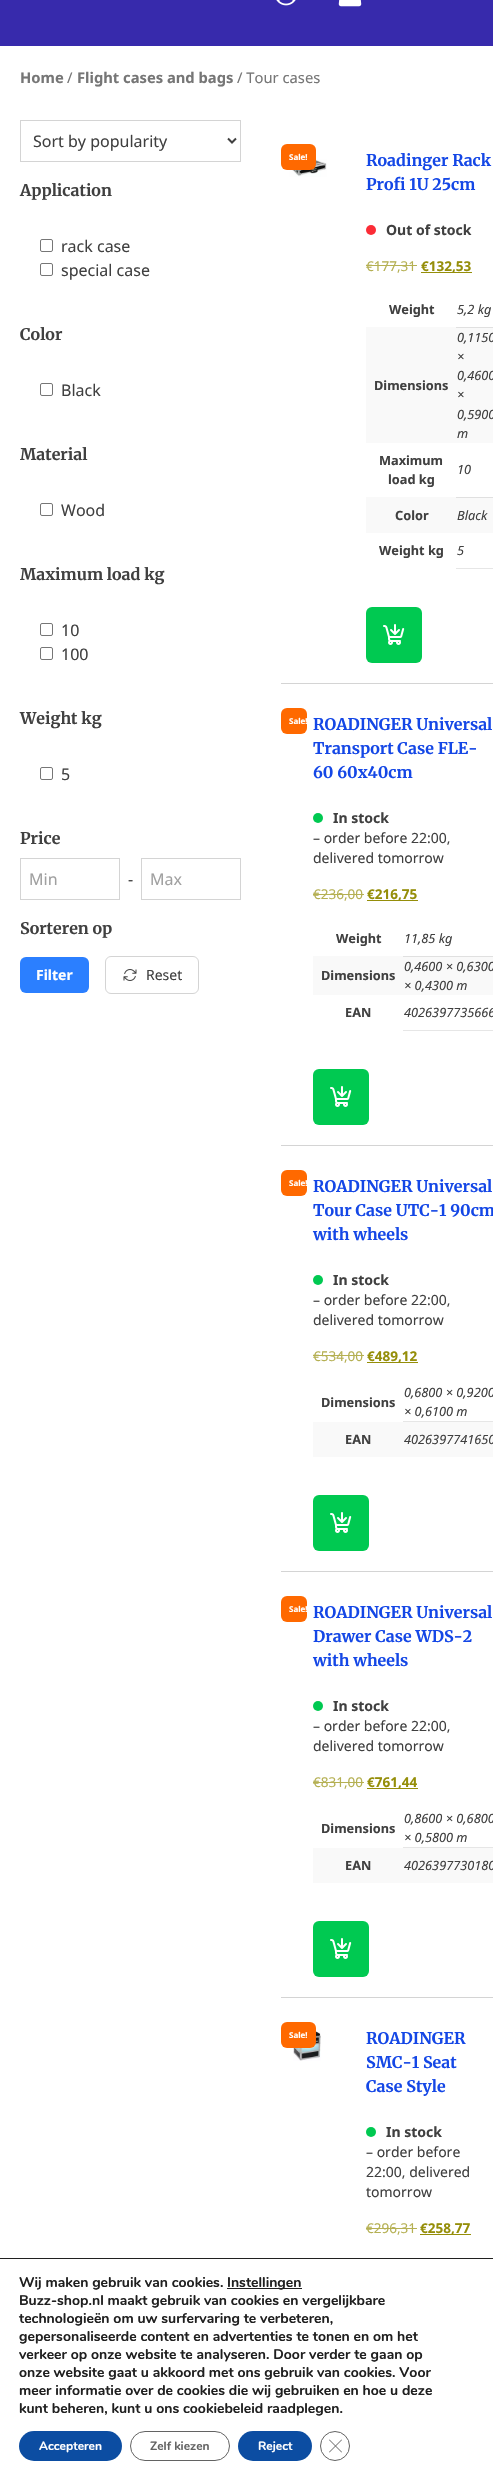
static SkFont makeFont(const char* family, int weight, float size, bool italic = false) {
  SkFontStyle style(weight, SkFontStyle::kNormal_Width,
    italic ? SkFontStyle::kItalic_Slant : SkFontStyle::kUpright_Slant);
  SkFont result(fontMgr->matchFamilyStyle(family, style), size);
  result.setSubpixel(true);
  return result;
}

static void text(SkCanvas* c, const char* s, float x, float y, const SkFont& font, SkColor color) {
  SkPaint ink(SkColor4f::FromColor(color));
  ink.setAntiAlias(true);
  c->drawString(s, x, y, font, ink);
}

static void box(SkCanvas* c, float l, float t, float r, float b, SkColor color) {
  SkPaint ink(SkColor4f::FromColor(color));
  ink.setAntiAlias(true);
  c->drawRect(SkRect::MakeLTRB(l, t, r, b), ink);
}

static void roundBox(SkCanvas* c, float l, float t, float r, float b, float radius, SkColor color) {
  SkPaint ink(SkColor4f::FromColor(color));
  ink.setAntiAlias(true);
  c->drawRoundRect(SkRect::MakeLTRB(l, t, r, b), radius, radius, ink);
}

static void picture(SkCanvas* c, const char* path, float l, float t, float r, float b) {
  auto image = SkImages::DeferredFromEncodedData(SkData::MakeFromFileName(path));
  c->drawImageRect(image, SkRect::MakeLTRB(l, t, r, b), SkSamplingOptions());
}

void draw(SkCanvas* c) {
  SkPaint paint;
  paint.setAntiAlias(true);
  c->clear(0xffffffff);
  box(c, 0, 0, 493, 46, 0xff372aac);
  picture(c, "img_01.png", 276, 0, 296, 6);
  picture(c, "img_02.png", 338, 0, 362, 7);
  SkFont face1 = makeFont("Noto Sans", 700, 14.75f);
  text(c, "Home", 20, 83, face1, 0xff767676);
  SkFont face2 = makeFont("Noto Sans", 400, 14.75f);
  text(c, "/", 67, 83, face2, 0xff767676);
  text(c, "Flight cases and bags", 77, 83, face1, 0xff767676);
  text(c, "/ Tour cases", 237, 83, face2, 0xff767676);
  paint.setStyle(SkPaint::kStroke_Style);
  paint.setStrokeWidth(1);
  paint.setColor(0xffd4d4d4);
  c->drawRect(SkRect::MakeLTRB(20.5f, 120.5f, 240.5f, 161.5f), paint);
  paint.setStrokeWidth(2);
  paint.setColor(0xff404040);
  c->drawPath(SkPathBuilder().moveTo(228, 138.5f).lineTo(232, 142.5f).lineTo(236, 138.5f).detach(), paint);
  SkFont face3 = makeFont("Noto Sans", 400, 16);
  text(c, "Sort by popularity", 33, 147, face3, 0xff404040);
  SkFont face4 = makeFont("Merriweather", 700, 16);
  text(c, "Application", 20, 196, face4, 0xff404040);
  paint.setStrokeWidth(1);
  paint.setColor(0xff767676);
  c->drawRoundRect(SkRect::MakeLTRB(40.5f, 239.5f, 52.5f, 251.5f), 1.5f, 1.5f, paint);
  text(c, "rack case", 61, 252, face3, 0xff404040);
  c->drawRoundRect(SkRect::MakeLTRB(40.5f, 263.5f, 52.5f, 275.5f), 1.5f, 1.5f, paint);
  text(c, "special case", 61, 276, face3, 0xff404040);
  text(c, "Color", 20, 340, face4, 0xff404040);
  c->drawRoundRect(SkRect::MakeLTRB(40.5f, 383.5f, 52.5f, 395.5f), 1.5f, 1.5f, paint);
  text(c, "Black", 61, 396, face3, 0xff404040);
  text(c, "Material", 20, 460, face4, 0xff404040);
  c->drawRoundRect(SkRect::MakeLTRB(40.5f, 503.5f, 52.5f, 515.5f), 1.5f, 1.5f, paint);
  text(c, "Wood", 61, 516, face3, 0xff404040);
  text(c, "Maximum load kg", 20, 580, face4, 0xff404040);
  c->drawRoundRect(SkRect::MakeLTRB(40.5f, 623.5f, 52.5f, 635.5f), 1.5f, 1.5f, paint);
  text(c, "10", 61, 636, face3, 0xff404040);
  c->drawRoundRect(SkRect::MakeLTRB(40.5f, 647.5f, 52.5f, 659.5f), 1.5f, 1.5f, paint);
  text(c, "100", 61, 660, face3, 0xff404040);
  text(c, "Weight kg", 20, 724, face4, 0xff404040);
  c->drawRoundRect(SkRect::MakeLTRB(40.5f, 767.5f, 52.5f, 779.5f), 1.5f, 1.5f, paint);
  text(c, "5", 61, 780, face3, 0xff404040);
  text(c, "Price", 20, 844, face4, 0xff404040);
  paint.setColor(0xffd4d4d4);
  c->drawRect(SkRect::MakeLTRB(20.5f, 858.5f, 119.5f, 899.5f), paint);
  text(c, "Min", 29, 885, face3, 0xffa0a0a0);
  text(c, "-", 128, 885, face3, 0xff404040);
  c->drawRect(SkRect::MakeLTRB(141.5f, 858.5f, 240.5f, 899.5f), paint);
  text(c, "Max", 150, 885, face3, 0xffa0a0a0);
  text(c, "Sorteren op", 20, 934, face4, 0xff404040);
  roundBox(c, 20, 957, 89, 993, 6, 0xff2b7fff);
  SkFont face5 = makeFont("Noto Sans", 700, 14);
  text(c, "Filter", 36, 980, face5, 0xffffffff);
  c->drawRoundRect(SkRect::MakeLTRB(105.5f, 956.5f, 198.5f, 993.5f), 5.5f, 5.5f, paint);
  picture(c, "img_03.png", 123, 969, 137, 981);
  SkFont face6 = makeFont("Noto Sans", 400, 14);
  text(c, "Reset", 146, 980, face6, 0xff404040);
  box(c, 281, 683, 493, 684, 0xffd4d4d4);
  picture(c, "img_04.png", 289, 159, 327, 177);
  roundBox(c, 281, 144, 316, 170, 6, 0xffff6900);
  SkFont face7 = makeFont("Noto Sans", 700, 8);
  text(c, "Sale!", 289, 160, face7, 0xffffffff);
  text(c, "Roadinger Rack", 366, 166, face4, 0xff1447e6);
  text(c, "Profi 1U 25cm", 366, 190, face4, 0xff1447e6);
  paint.setStyle(SkPaint::kFill_Style);
  paint.setColor(0xfffb2c36);
  c->drawCircle(371, 230, 5, paint);
  text(c, "Out of stock", 386, 235, face5, 0xff404040);
  SkFont face8 = makeFont("Noto Sans", 400, 13.5f);
  text(c, "€177,31", 366, 271, face8, 0xffb5b053);
  box(c, 366, 265, 417, 266, 0xffb5b053);
  box(c, 421, 272, 472, 273, 0xff958e09);
  SkFont face9 = makeFont("Noto Sans", 700, 13.5f);
  text(c, "€132,53", 421, 271, face9, 0xff958e09);
  SkFont face10 = makeFont("Noto Sans", 700, 12.75f);
  text(c, "Weight", 389, 314, face10, 0xff404040);
  box(c, 366, 327, 457, 443, 0xfff9f9f9);
  box(c, 456, 327, 493, 328, 0xffe0e0e0);
  SkFont face11 = makeFont("Noto Sans", 400, 12.75f, true);
  text(c, "5,2 kg", 457, 314, face11, 0xff404040);
  text(c, "Dimensions", 374, 390, face10, 0xff404040);
  box(c, 457, 328, 493, 443, 0xfff9f9f9);
  text(c, "0,1150", 457, 342, face11, 0xff404040);
  text(c, "×", 457, 361, face11, 0xff404040);
  text(c, "0,4600", 457, 380, face11, 0xff404040);
  text(c, "×", 457, 399, face11, 0xff404040);
  text(c, "0,5900", 457, 419, face11, 0xff404040);
  text(c, "m", 457, 438, face11, 0xff404040);
  text(c, "Maximum", 379, 465, face10, 0xff404040);
  text(c, "load kg", 388, 484, face10, 0xff404040);
  box(c, 366, 497, 457, 533, 0xfff9f9f9);
  box(c, 456, 497, 493, 498, 0xffe0e0e0);
  text(c, "10", 457, 474, face11, 0xff404040);
  text(c, "Color", 395, 520, face10, 0xff404040);
  box(c, 457, 498, 493, 533, 0xfff9f9f9);
  text(c, "Black", 457, 520, face11, 0xff404040);
  text(c, "Weight kg", 379, 555, face10, 0xff404040);
  box(c, 456, 568, 493, 569, 0xffe6e6e6);
  text(c, "5", 457, 555, face11, 0xff404040);
  roundBox(c, 366, 607, 422, 663, 6, 0xff00c951);
  picture(c, "img_05.png", 383, 624, 405, 645);
  box(c, 281, 1145, 493, 1146, 0xffd4d4d4);
  roundBox(c, 281, 708, 307, 734, 6, 0xffff6900);
  text(c, "Sale!", 289, 724, face7, 0xffffffff);
  text(c, "ROADINGER Universal", 313, 730, face4, 0xff1447e6);
  text(c, "Transport Case FLE-", 313, 754, face4, 0xff1447e6);
  text(c, "60 60x40cm", 313, 778, face4, 0xff1447e6);
  paint.setColor(0xff00c951);
  c->drawCircle(318, 818, 5, paint);
  text(c, "In stock", 333, 823, face5, 0xff404040);
  text(c, "– order before 22:00,", 313, 843, face6, 0xff404040);
  text(c, "delivered tomorrow", 313, 863, face6, 0xff404040);
  text(c, "€236,00", 313, 899, face8, 0xffb5b053);
  box(c, 313, 894, 364, 895, 0xffb5b053);
  box(c, 367, 900, 418, 901, 0xff958e09);
  text(c, "€216,75", 367, 899, face9, 0xff958e09);
  text(c, "Weight", 336, 943, face10, 0xff404040);
  box(c, 313, 956, 404, 995, 0xfff9f9f9);
  box(c, 403, 956, 493, 957, 0xffe0e0e0);
  text(c, "11,85 kg", 404, 943, face11, 0xff404040);
  text(c, "Dimensions", 321, 980, face10, 0xff404040);
  box(c, 404, 957, 493, 995, 0xfff9f9f9);
  text(c, "0,4600 × 0,6300", 404, 971, face11, 0xff404040);
  text(c, "× 0,4300 m", 404, 990, face11, 0xff404040);
  text(c, "EAN", 345, 1017, face10, 0xff404040);
  box(c, 403, 1030, 493, 1031, 0xffe6e6e6);
  text(c, "4026397735666", 404, 1017, face11, 0xff404040);
  roundBox(c, 313, 1069, 369, 1125, 6, 0xff00c951);
  picture(c, "img_05.png", 330, 1086, 352, 1107);
  box(c, 281, 1571, 493, 1572, 0xffd4d4d4);
  roundBox(c, 281, 1170, 307, 1196, 6, 0xffff6900);
  text(c, "Sale!", 289, 1186, face7, 0xffffffff);
  text(c, "ROADINGER Universal", 313, 1192, face4, 0xff1447e6);
  text(c, "Tour Case UTC-1 90cm", 313, 1216, face4, 0xff1447e6);
  text(c, "with wheels", 313, 1240, face4, 0xff1447e6);
  c->drawCircle(318, 1280, 5, paint);
  text(c, "In stock", 333, 1285, face5, 0xff404040);
  text(c, "– order before 22:00,", 313, 1305, face6, 0xff404040);
  text(c, "delivered tomorrow", 313, 1325, face6, 0xff404040);
  text(c, "€534,00", 313, 1361, face8, 0xffb5b053);
  box(c, 313, 1355, 364, 1356, 0xffb5b053);
  box(c, 367, 1362, 418, 1363, 0xff958e09);
  text(c, "€489,12", 367, 1361, face9, 0xff958e09);
  text(c, "Dimensions", 321, 1407, face10, 0xff404040);
  box(c, 403, 1421, 493, 1422, 0xffe6e6e6);
  text(c, "0,6800 × 0,9200", 404, 1397, face11, 0xff404040);
  text(c, "× 0,6100 m", 404, 1416, face11, 0xff404040);
  box(c, 313, 1422, 493, 1457, 0xfff9f9f9);
  text(c, "EAN", 345, 1444, face10, 0xff404040);
  text(c, "4026397741650", 404, 1444, face11, 0xff404040);
  roundBox(c, 313, 1495, 369, 1551, 6, 0xff00c951);
  picture(c, "img_05.png", 330, 1512, 352, 1533);
  box(c, 281, 1997, 493, 1998, 0xffd4d4d4);
  roundBox(c, 281, 1596, 307, 1622, 6, 0xffff6900);
  text(c, "Sale!", 289, 1612, face7, 0xffffffff);
  text(c, "ROADINGER Universal", 313, 1618, face4, 0xff1447e6);
  text(c, "Drawer Case WDS-2", 313, 1642, face4, 0xff1447e6);
  text(c, "with wheels", 313, 1666, face4, 0xff1447e6);
  c->drawCircle(318, 1706, 5, paint);
  text(c, "In stock", 333, 1711, face5, 0xff404040);
  text(c, "– order before 22:00,", 313, 1731, face6, 0xff404040);
  text(c, "delivered tomorrow", 313, 1751, face6, 0xff404040);
  text(c, "€831,00", 313, 1787, face8, 0xffb5b053);
  box(c, 313, 1782, 364, 1783, 0xffb5b053);
  box(c, 367, 1788, 418, 1789, 0xff958e09);
  text(c, "€761,44", 367, 1787, face9, 0xff958e09);
  text(c, "Dimensions", 321, 1833, face10, 0xff404040);
  box(c, 403, 1847, 493, 1848, 0xffe6e6e6);
  text(c, "0,8600 × 0,6800", 404, 1823, face11, 0xff404040);
  text(c, "× 0,5800 m", 404, 1842, face11, 0xff404040);
  box(c, 313, 1848, 493, 1883, 0xfff9f9f9);
  text(c, "EAN", 345, 1870, face10, 0xff404040);
  text(c, "4026397730180", 404, 1870, face11, 0xff404040);
  roundBox(c, 313, 1921, 369, 1977, 6, 0xff00c951);
  picture(c, "img_05.png", 330, 1938, 352, 1959);
  picture(c, "img_06.png", 293, 2029, 321, 2061);
  roundBox(c, 281, 2022, 316, 2048, 6, 0xffff6900);
  text(c, "Sale!", 289, 2038, face7, 0xffffffff);
  text(c, "ROADINGER", 366, 2044, face4, 0xff1447e6);
  text(c, "SMC-1 Seat", 366, 2068, face4, 0xff1447e6);
  text(c, "Case Style", 366, 2092, face4, 0xff1447e6);
  c->drawCircle(371, 2132, 5, paint);
  text(c, "In stock", 386, 2137, face5, 0xff404040);
  text(c, "– order before", 366, 2157, face6, 0xff404040);
  text(c, "22:00, delivered", 366, 2177, face6, 0xff404040);
  text(c, "tomorrow", 366, 2197, face6, 0xff404040);
  text(c, "€296,31", 366, 2233, face8, 0xffb5b053);
  box(c, 366, 2228, 417, 2229, 0xffb5b053);
  box(c, 420, 2234, 471, 2235, 0xff958e09);
  text(c, "€258,77", 420, 2233, face9, 0xff958e09);
  box(c, 0, 2258, 493, 2259, 0xff202020);
  SkFont face12 = makeFont("Nunito", 700, 14);
  text(c, "Wij maken gebruik van cookies.", 19, 2287, face12, 0xff202020);
  box(c, 227, 2288, 302, 2289, 0xff202020);
  text(c, "Instellingen", 227, 2287, face12, 0xff202020);
  text(c, "Buzz-shop.nl maakt gebruik van cookies en vergelijkbare", 19, 2305, face12, 0xff202020);
  text(c, "technologieën om uw surfervaring te verbeteren,", 19, 2323, face12, 0xff202020);
  text(c, "gepersonaliseerde content en advertenties te tonen en om het", 19, 2341, face12, 0xff202020);
  text(c, "verkeer op onze website te analyseren. Door verder te gaan op", 19, 2359, face12, 0xff202020);
  text(c, "onze website gaat u akkoord met ons gebruik van cookies. Voor", 19, 2377, face12, 0xff202020);
  text(c, "meer informatie over de cookies die wij gebruiken en hoe u deze", 19, 2395, face12, 0xff202020);
  text(c, "kunt beheren, kunt u ons cookiebeleid raadplegen.", 19, 2413, face12, 0xff202020);
  roundBox(c, 19, 2431, 122, 2461, 15, 0xff0c4da2);
  SkFont face13 = makeFont("Nunito", 700, 12);
  text(c, "Accepteren", 39, 2450, face13, 0xffffffff);
  paint.setStyle(SkPaint::kStroke_Style);
  paint.setColor(0xff636363);
  c->drawRoundRect(SkRect::MakeLTRB(130.5f, 2431.5f, 229.5f, 2460.5f), 14.5f, 14.5f, paint);
  text(c, "Zelf kiezen", 150, 2450, face13, 0xff636363);
  roundBox(c, 238, 2431, 312, 2461, 15, 0xff0c4da2);
  text(c, "Reject", 258, 2450, face13, 0xffffffff);
  paint.setColor(0xff626262);
  c->drawCircle(335, 2446, 14.5f, paint);
  paint.setStyle(SkPaint::kFill_Style);
  c->drawPath(SkPathBuilder().moveTo(341.5f, 2439.5f).lineTo(342, 2440).lineTo(329.5f, 2452.5f).lineTo(329, 2452).close().detach(), paint);
  c->drawPath(SkPathBuilder().moveTo(329, 2440).lineTo(329.5f, 2439.5f).lineTo(342, 2452).lineTo(341.5f, 2452.5f).close().detach(), paint);
}
